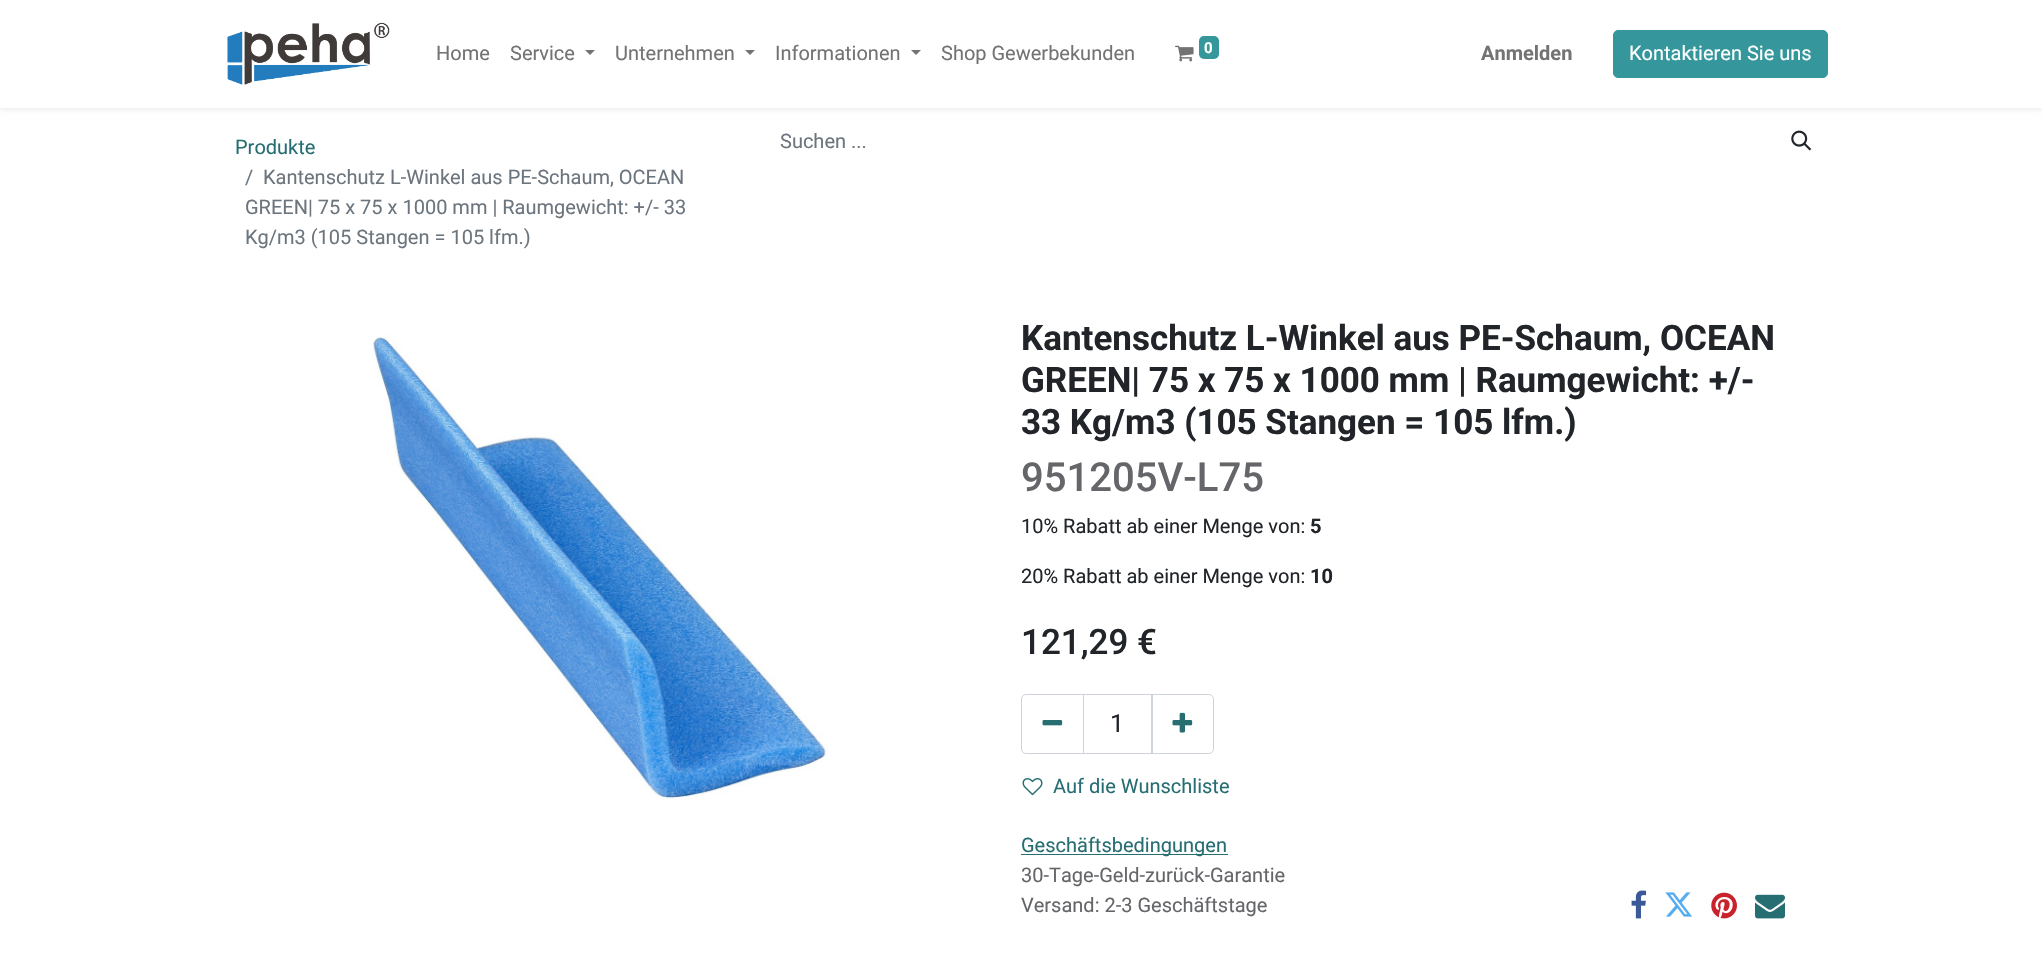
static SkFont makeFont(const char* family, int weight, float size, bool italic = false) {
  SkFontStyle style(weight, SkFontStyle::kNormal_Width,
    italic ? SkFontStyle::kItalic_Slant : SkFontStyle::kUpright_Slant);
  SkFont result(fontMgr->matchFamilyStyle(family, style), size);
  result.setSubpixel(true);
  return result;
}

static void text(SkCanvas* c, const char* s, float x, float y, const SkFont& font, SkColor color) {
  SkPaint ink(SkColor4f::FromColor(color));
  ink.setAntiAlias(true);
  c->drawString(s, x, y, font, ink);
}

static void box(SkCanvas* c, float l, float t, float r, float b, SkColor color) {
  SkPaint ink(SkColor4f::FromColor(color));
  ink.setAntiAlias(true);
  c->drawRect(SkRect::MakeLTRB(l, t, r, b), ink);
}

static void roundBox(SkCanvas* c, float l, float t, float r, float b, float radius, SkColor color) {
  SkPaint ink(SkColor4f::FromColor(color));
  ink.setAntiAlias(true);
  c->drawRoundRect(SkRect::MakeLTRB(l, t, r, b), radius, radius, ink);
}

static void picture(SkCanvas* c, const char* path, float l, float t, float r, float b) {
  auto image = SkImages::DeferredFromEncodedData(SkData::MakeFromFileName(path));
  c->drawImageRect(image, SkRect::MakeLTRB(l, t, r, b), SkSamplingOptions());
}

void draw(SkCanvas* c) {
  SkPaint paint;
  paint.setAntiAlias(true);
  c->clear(0xffffffff);
  paint.setColor(0x12000000);
  paint.setMaskFilter(SkMaskFilter::MakeBlur(kNormal_SkBlurStyle, 2.5f));
  c->drawRect(SkRect::MakeLTRB(0, 3, 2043, 110), paint);
  paint.setMaskFilter(nullptr);
  box(c, 0, 0, 2042, 108, 0xffffffff);
  picture(c, "img_01.png", 227, 22, 390, 85);
  SkFont face1 = makeFont("Roboto", 400, 20);
  text(c, "Home", 436, 60, face1, 0xff737373);
  text(c, "Service", 510, 60, face1, 0xff737373);
  paint.setColor(0xff737373);
  c->drawPath(SkPathBuilder().moveTo(585, 50).lineTo(595, 50).lineTo(590, 55).close().detach(), paint);
  text(c, "Unternehmen", 615, 60, face1, 0xff737373);
  c->drawPath(SkPathBuilder().moveTo(745, 50).lineTo(755, 50).lineTo(750, 55).close().detach(), paint);
  text(c, "Informationen", 775, 60, face1, 0xff737373);
  c->drawPath(SkPathBuilder().moveTo(911, 50).lineTo(921, 50).lineTo(916, 55).close().detach(), paint);
  text(c, "Shop Gewerbekunden", 941, 60, face1, 0xff737373);
  picture(c, "img_02.png", 1175, 45, 1194, 62);
  roundBox(c, 1199, 36, 1219, 59, 5, 0xff35979c);
  SkFont face2 = makeFont("Roboto", 700, 15);
  text(c, "0", 1204, 53, face2, 0xffffffff);
  SkFont face3 = makeFont("Roboto", 700, 20);
  text(c, "Anmelden", 1481, 60, face3, 0xff737373);
  paint.setColor(0xff35979c);
  c->drawRoundRect(SkRect::MakeLTRB(1613.5f, 30.5f, 1827.5f, 77.5f), 4.5f, 4.5f, paint);
  paint.setStyle(SkPaint::kStroke_Style);
  paint.setStrokeWidth(1);
  c->drawRoundRect(SkRect::MakeLTRB(1613.5f, 30.5f, 1827.5f, 77.5f), 4.5f, 4.5f, paint);
  text(c, "Kontaktieren Sie uns", 1629, 60, face1, 0xffffffff);
  text(c, "Produkte", 235, 154, face1, 0xff276e72);
  text(c, "/", 245, 184, face1, 0xff6c757d);
  text(c, "Kantenschutz L-Winkel aus PE-Schaum, OCEAN", 263, 184, face1, 0xff6c757d);
  text(c, "GREEN| 75 x 75 x 1000 mm | Raumgewicht: +/- 33", 245, 214, face1, 0xff6c757d);
  text(c, "Kg/m3 (105 Stangen = 105 lfm.)", 245, 244, face1, 0xff6c757d);
  text(c, "Suchen ...", 780, 148, face1, 0xff6c757d);
  picture(c, "img_03.png", 1791, 130, 1812, 151);
  picture(c, "img_04.png", 373, 334, 827, 800);
  SkFont face4 = makeFont("Roboto", 700, 35);
  text(c, "Kantenschutz L-Winkel aus PE-Schaum, OCEAN", 1021, 350, face4, 0xff212529);
  text(c, "GREEN| 75 x 75 x 1000 mm | Raumgewicht: +/-", 1021, 392, face4, 0xff212529);
  text(c, "33 Kg/m3 (105 Stangen = 105 lfm.)", 1021, 434, face4, 0xff212529);
  SkFont face5 = makeFont("Roboto", 500, 40);
  text(c, "951205V-L75", 1021, 491, face5, 0xff646669);
  text(c, "10% Rabatt ab einer Menge von:", 1021, 533, face1, 0xff212529);
  text(c, "5", 1310, 533, face3, 0xff212529);
  text(c, "20% Rabatt ab einer Menge von:", 1021, 583, face1, 0xff212529);
  text(c, "10", 1310, 583, face3, 0xff212529);
  SkFont face6 = makeFont("Roboto", 500, 35);
  text(c, "121,29 €", 1021, 654, face6, 0xff212529);
  paint.setColor(0xffced4da);
  c->drawRect(SkRect::MakeLTRB(1083.5f, 694.5f, 1152.5f, 753.5f), paint);
  c->drawPath(SkPathBuilder().moveTo(1026, 694.5f).lineTo(1083.5f, 694.5f).lineTo(1083.5f, 753.5f).lineTo(1026, 753.5f).cubicTo(1023.5f, 753.5f, 1021.5f, 751.5f, 1021.5f, 749).lineTo(1021.5f, 699).cubicTo(1021.5f, 696.5f, 1023.5f, 694.5f, 1026, 694.5f).close().detach(), paint);
  picture(c, "img_05.png", 1042, 720, 1063, 726);
  SkFont face7 = makeFont("Roboto", 400, 25);
  text(c, "1", 1110, 732, face7, 0xff212529);
  c->drawPath(SkPathBuilder().moveTo(1151.5f, 694.5f).lineTo(1209, 694.5f).cubicTo(1211.5f, 694.5f, 1213.5f, 696.5f, 1213.5f, 699).lineTo(1213.5f, 749).cubicTo(1213.5f, 751.5f, 1211.5f, 753.5f, 1209, 753.5f).lineTo(1151.5f, 753.5f).close().detach(), paint);
  picture(c, "img_06.png", 1172, 712, 1193, 733);
  picture(c, "img_07.png", 1022, 778, 1043, 796);
  text(c, "Auf die Wunschliste", 1053, 793, face1, 0xff276e72);
  box(c, 1021, 854, 1228, 855, 0xff276e72);
  text(c, "Geschäftsbedingungen", 1021, 852, face1, 0xff276e72);
  text(c, "30-Tage-Geld-zurück-Garantie", 1021, 882, face1, 0xff646669);
  text(c, "Versand: 2-3 Geschäftstage", 1021, 912, face1, 0xff646669);
  picture(c, "img_08.png", 1631, 890, 1647, 919);
  picture(c, "img_09.png", 1665, 892, 1692, 917);
  picture(c, "img_10.png", 1711, 892, 1737, 919);
  picture(c, "img_11.png", 1755, 894, 1785, 919);
}
